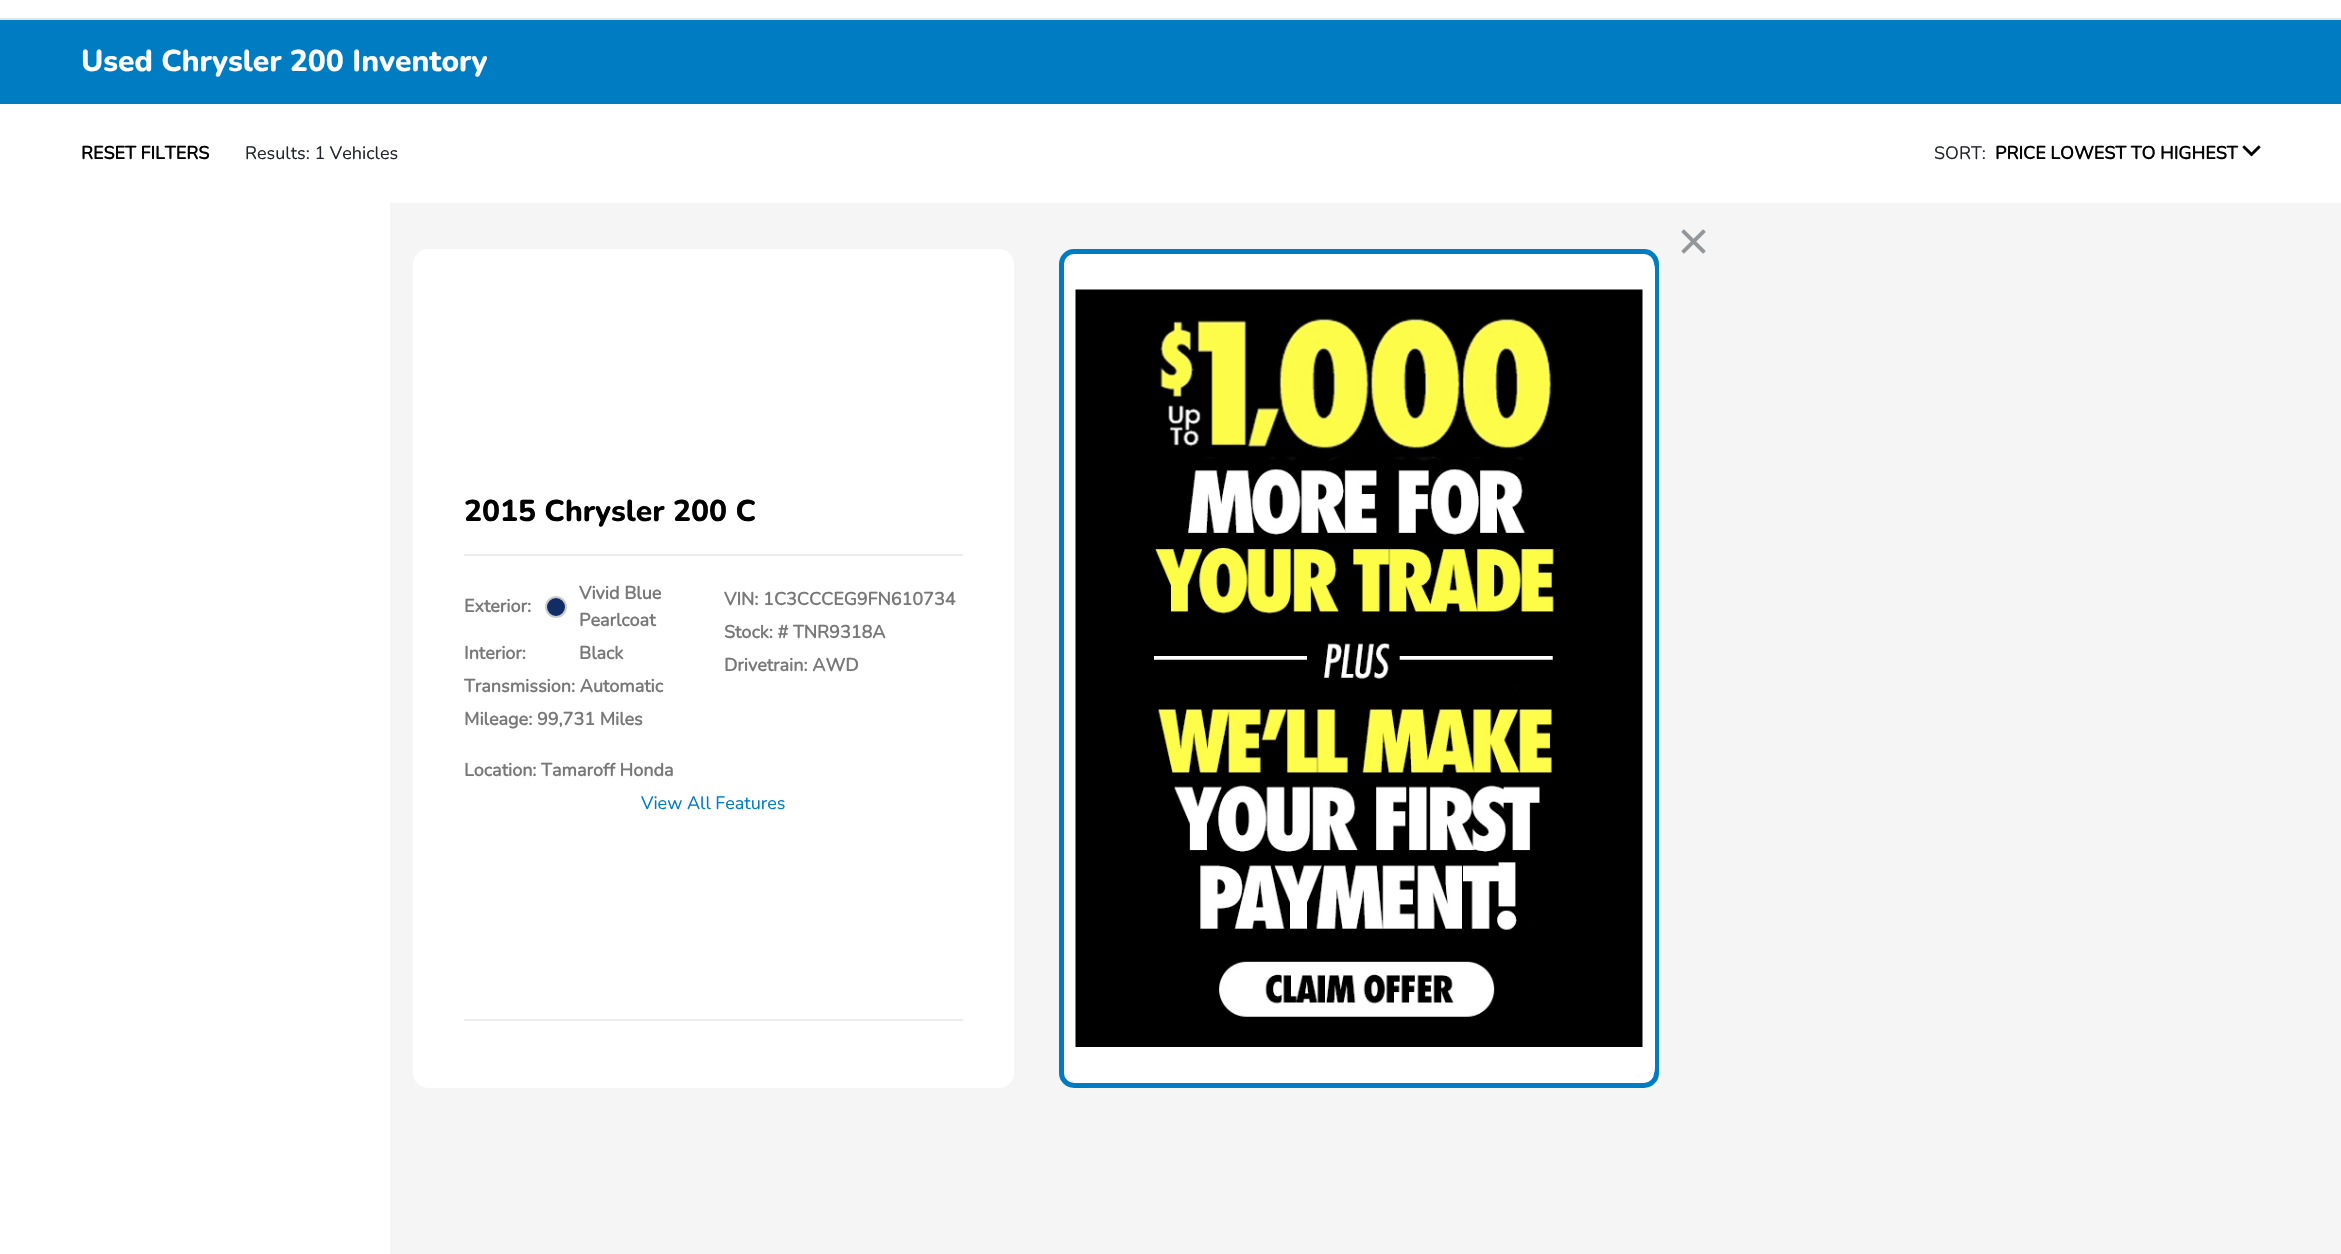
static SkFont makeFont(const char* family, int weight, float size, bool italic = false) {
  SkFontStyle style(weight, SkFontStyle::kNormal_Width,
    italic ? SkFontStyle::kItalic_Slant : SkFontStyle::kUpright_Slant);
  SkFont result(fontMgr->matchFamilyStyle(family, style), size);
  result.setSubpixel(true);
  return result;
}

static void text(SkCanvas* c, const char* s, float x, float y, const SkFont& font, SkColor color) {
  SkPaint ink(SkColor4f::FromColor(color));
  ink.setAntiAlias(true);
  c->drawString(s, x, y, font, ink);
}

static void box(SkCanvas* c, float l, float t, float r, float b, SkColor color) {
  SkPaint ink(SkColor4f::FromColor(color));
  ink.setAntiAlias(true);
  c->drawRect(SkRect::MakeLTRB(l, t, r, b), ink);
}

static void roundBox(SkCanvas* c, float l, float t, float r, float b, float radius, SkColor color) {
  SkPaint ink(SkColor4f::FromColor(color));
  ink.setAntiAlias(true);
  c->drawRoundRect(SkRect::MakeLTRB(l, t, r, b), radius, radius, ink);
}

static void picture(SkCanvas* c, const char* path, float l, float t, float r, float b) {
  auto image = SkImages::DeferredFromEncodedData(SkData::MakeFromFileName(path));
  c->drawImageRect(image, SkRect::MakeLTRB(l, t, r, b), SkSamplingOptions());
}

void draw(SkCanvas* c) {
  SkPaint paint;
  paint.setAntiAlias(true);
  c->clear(0xffffffff);
  box(c, 390, 203, 2341, 1254, 0xfff5f5f5);
  box(c, 0, 20, 2341, 104, 0xff007cc3);
  box(c, 0, 18, 2341, 20, 0xffdee2e6);
  SkFont face1 = makeFont("Nunito", 800, 30);
  text(c, "Used Chrysler 200 Inventory", 81, 71, face1, 0xffffffff);
  SkFont face2 = makeFont("Nunito", 700, 18);
  text(c, "RESET FILTERS", 81, 159, face2, 0xff000000);
  SkFont face3 = makeFont("Nunito", 400, 18);
  text(c, "Results: 1 Vehicles", 245, 159, face3, 0xff212529);
  text(c, "SORT:", 1934, 159, face3, 0xff212529);
  text(c, "PRICE LOWEST TO HIGHEST", 1995, 159, face2, 0xff000000);
  picture(c, "img_01.png", 2242, 145, 2261, 157);
  picture(c, "img_02.png", 1681, 229, 1706, 254);
  roundBox(c, 413, 249, 1014, 1088, 15, 0xffffffff);
  text(c, "2015 Chrysler 200 C", 464, 521, face1, 0xff000000);
  box(c, 464, 554, 963, 556, 0xffededed);
  text(c, "Exterior:", 464, 612, face2, 0xff797878);
  paint.setColor(0xff122c66);
  c->drawCircle(556, 607, 10, paint);
  paint.setStyle(SkPaint::kStroke_Style);
  paint.setStrokeWidth(2);
  paint.setColor(0xffcccccc);
  c->drawCircle(556, 607, 10, paint);
  text(c, "Vivid Blue", 579, 599, face2, 0xff797878);
  text(c, "Pearlcoat", 579, 626, face2, 0xff797878);
  text(c, "Interior:", 464, 659, face2, 0xff797878);
  text(c, "Black", 579, 659, face2, 0xff797878);
  text(c, "Transmission: Automatic", 464, 692, face2, 0xff797878);
  text(c, "Mileage: 99,731 Miles", 464, 725, face2, 0xff797878);
  text(c, "VIN: 1C3CCCEG9FN610734", 724, 605, face2, 0xff797878);
  text(c, "Stock: # TNR9318A", 724, 638, face2, 0xff797878);
  text(c, "Drivetrain: AWD", 724, 671, face2, 0xff797878);
  text(c, "Location: Tamaroff Honda", 464, 776, face2, 0xff797878);
  text(c, "View All Features", 641, 809, face3, 0xff007cc3);
  box(c, 464, 1019, 963, 1021, 0xffededed);
  paint.setStyle(SkPaint::kFill_Style);
  paint.setColor(0xffffffff);
  c->drawRoundRect(SkRect::MakeLTRB(1061.5f, 251.5f, 1656.5f, 1085.5f), 12.5f, 12.5f, paint);
  paint.setStyle(SkPaint::kStroke_Style);
  paint.setStrokeWidth(5);
  paint.setColor(0xff007cc3);
  c->drawRoundRect(SkRect::MakeLTRB(1061.5f, 251.5f, 1656.5f, 1085.5f), 12.5f, 12.5f, paint);
  roundBox(c, 1064, 254, 1655, 1083, 15, 0xffffffff);
  picture(c, "img_03.png", 1075, 289, 1643, 1047);
}
